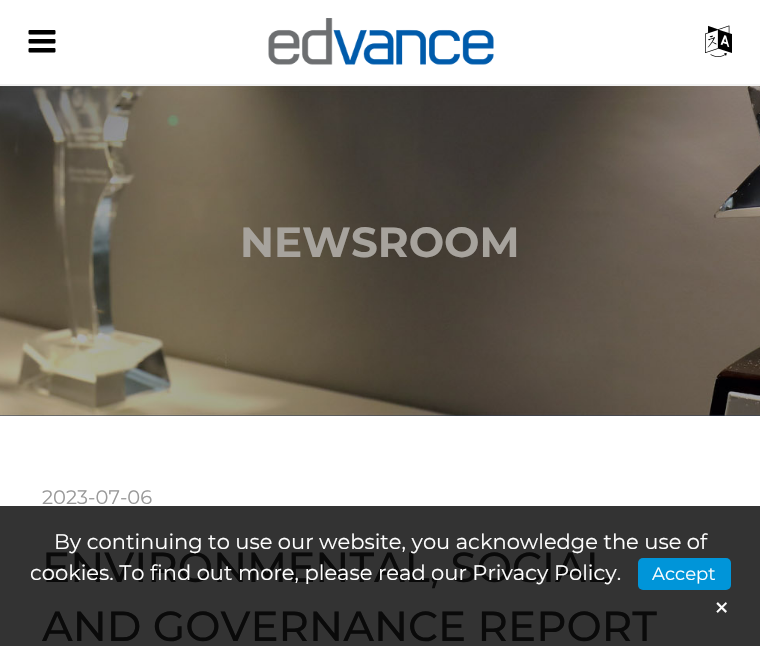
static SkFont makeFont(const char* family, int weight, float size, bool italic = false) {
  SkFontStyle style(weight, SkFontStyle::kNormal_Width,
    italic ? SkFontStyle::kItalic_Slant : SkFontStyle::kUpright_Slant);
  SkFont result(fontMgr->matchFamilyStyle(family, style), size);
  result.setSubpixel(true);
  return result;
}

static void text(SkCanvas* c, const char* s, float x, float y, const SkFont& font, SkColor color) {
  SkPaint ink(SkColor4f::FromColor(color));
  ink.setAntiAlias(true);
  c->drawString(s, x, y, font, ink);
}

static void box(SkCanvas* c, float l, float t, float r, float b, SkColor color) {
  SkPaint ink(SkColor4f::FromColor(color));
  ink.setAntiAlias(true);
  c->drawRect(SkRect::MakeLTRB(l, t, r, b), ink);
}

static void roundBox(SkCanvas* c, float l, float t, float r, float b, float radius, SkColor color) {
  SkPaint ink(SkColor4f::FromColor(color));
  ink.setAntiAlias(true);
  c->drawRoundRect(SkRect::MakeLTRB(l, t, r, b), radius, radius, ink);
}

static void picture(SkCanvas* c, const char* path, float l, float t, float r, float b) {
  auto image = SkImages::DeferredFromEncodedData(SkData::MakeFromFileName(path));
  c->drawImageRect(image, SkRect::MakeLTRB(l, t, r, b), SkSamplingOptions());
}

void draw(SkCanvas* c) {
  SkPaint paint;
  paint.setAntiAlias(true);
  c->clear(0xff293750);
  box(c, 0, 0, 760, 84, 0xffffffff);
  picture(c, "img_01.png", 268, 18, 494, 65);
  picture(c, "img_02.png", 28, 30, 56, 53);
  picture(c, "img_03.png", 705, 25, 732, 57);
  box(c, 0, 84, 760, 86, 0xfff2f2f2);
  picture(c, "img_04.png", 0, 86, 760, 416);
  SkFont face1 = makeFont("Montserrat", 700, 42);
  text(c, "NEWSROOM", 240, 257, face1, 0xffa7a39d);
  box(c, 0, 416, 760, 506, 0xffffffff);
  box(c, 0, 506, 760, 646, 0xff333333);
  SkFont face2 = makeFont("Montserrat", 400, 19.5f);
  text(c, "2023-07-06", 42, 504, face2, 0xff999999);
  SkFont face3 = makeFont("Montserrat", 500, 42);
  text(c, "ENVIRONMENTAL, SOCIAL", 42, 582, face3, 0xff0a0a0a);
  text(c, "AND GOVERNANCE REPORT", 42, 641, face3, 0xff0a0a0a);
  SkFont face4 = makeFont("Montserrat", 400, 21);
  text(c, "By continuing to use our website, you acknowledge the use of", 54, 549, face4, 0xffffffff);
  text(c, "cookies. To find out more, please read our Privacy Policy.", 30, 580, face4, 0xffffffff);
  roundBox(c, 638, 558, 731, 590, 5, 0xff0095d9);
  SkFont face5 = makeFont("Montserrat", 400, 18);
  text(c, "Accept", 652, 580, face5, 0xffffffff);
  SkFont face6 = makeFont("Montserrat", 400, 30);
  c->save();
  c->rotate(-45, 723, 621);
  text(c, "+", 723, 621, face6, 0xffffffff);
  c->restore();
}
